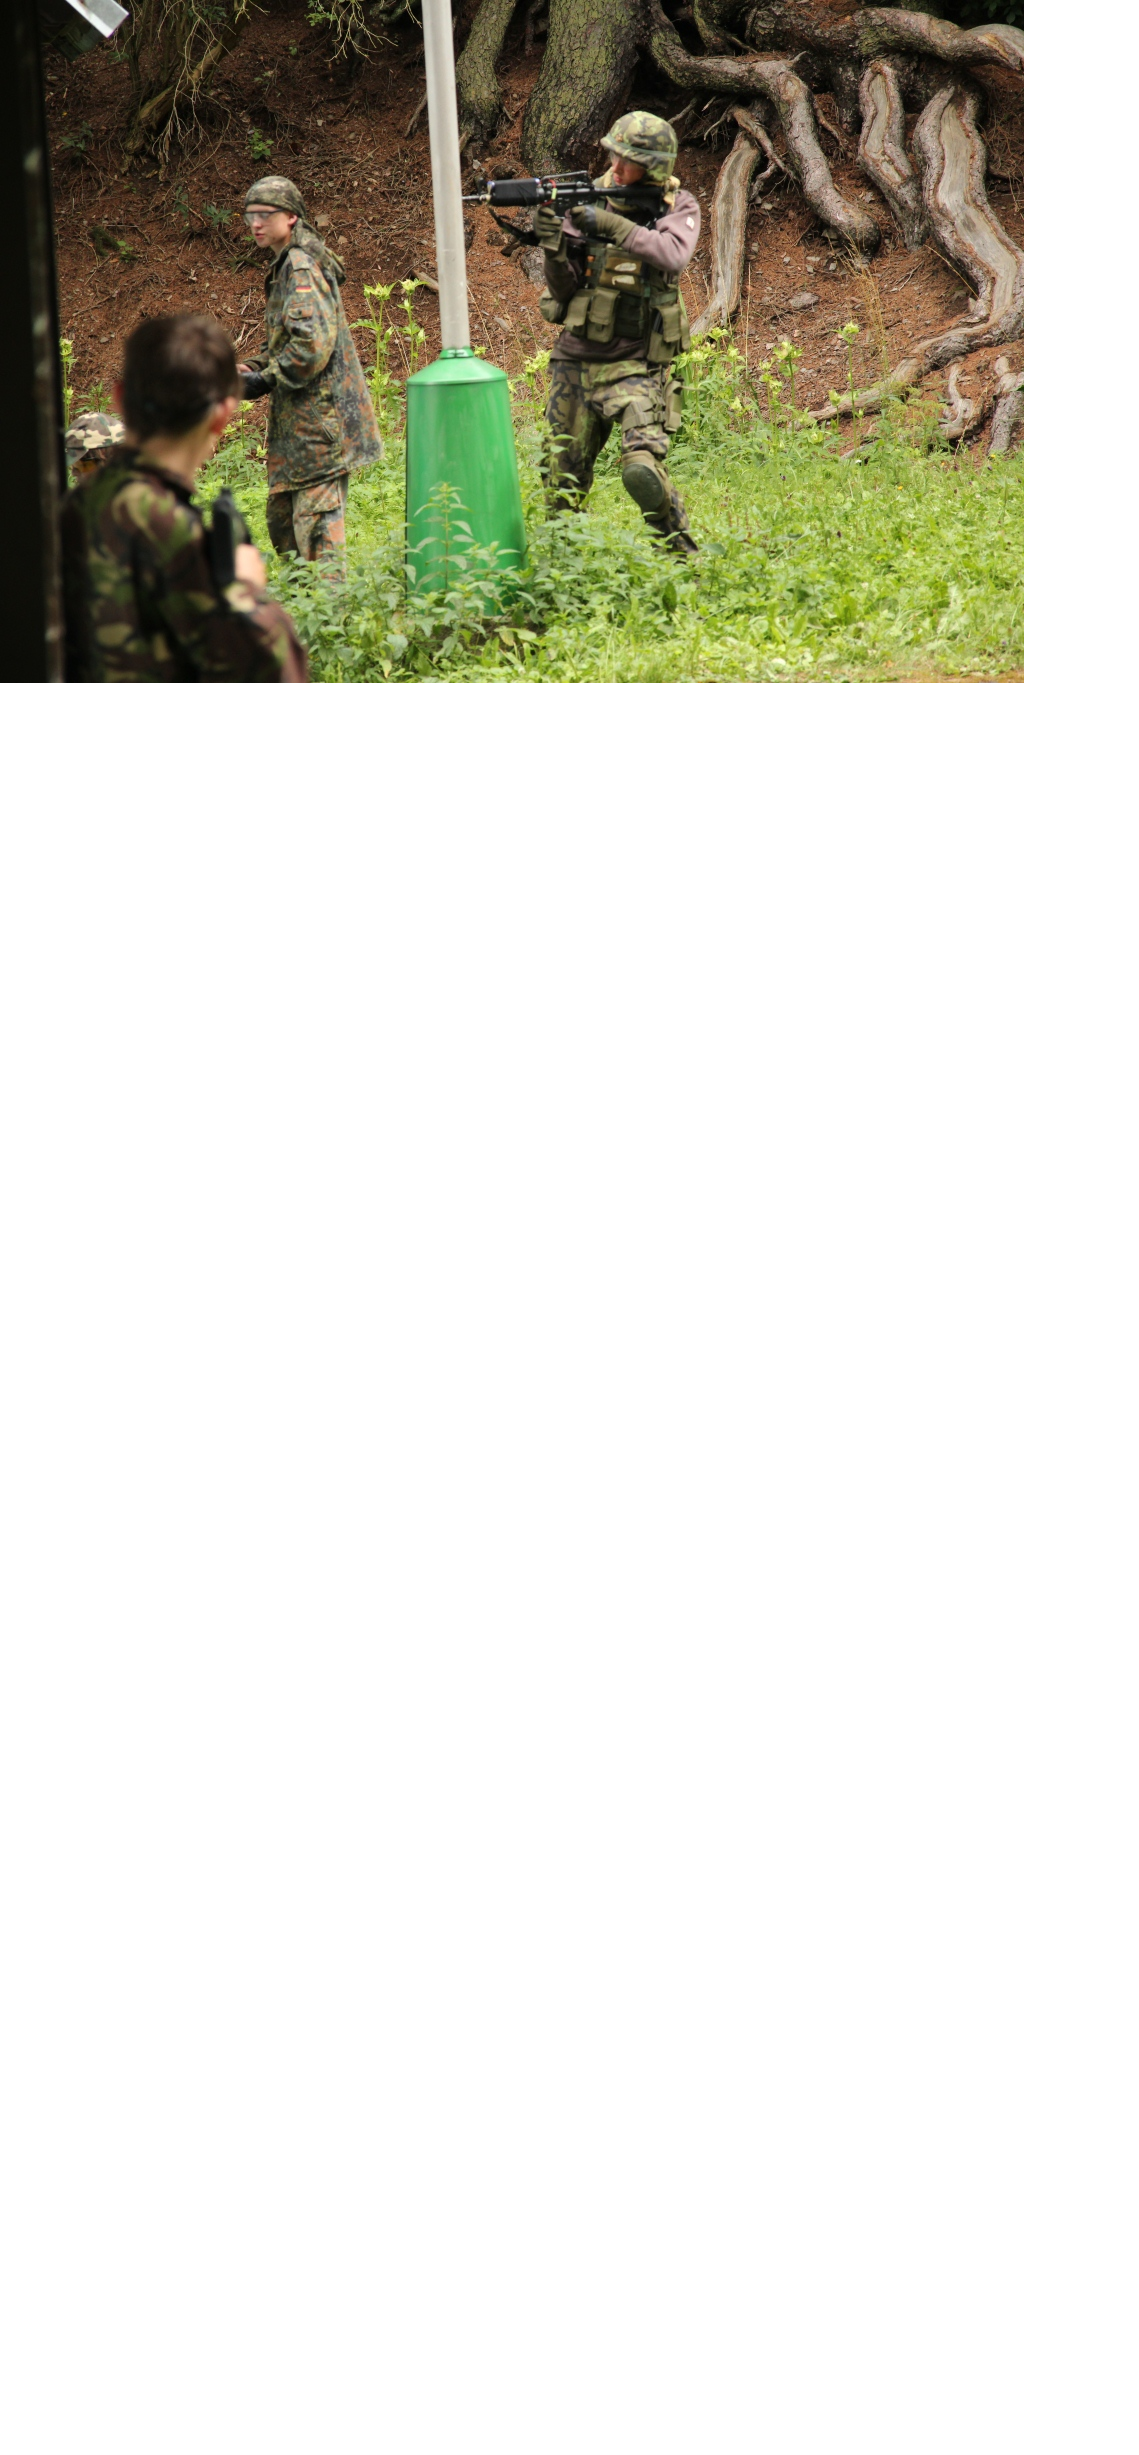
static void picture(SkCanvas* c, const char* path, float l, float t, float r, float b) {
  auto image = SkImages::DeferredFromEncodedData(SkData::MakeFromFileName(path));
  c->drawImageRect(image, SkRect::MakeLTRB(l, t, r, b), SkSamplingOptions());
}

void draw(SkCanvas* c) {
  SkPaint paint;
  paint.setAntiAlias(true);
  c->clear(0xffffffff);
  picture(c, "img_01.png", 0, 0, 1024, 683);
}
